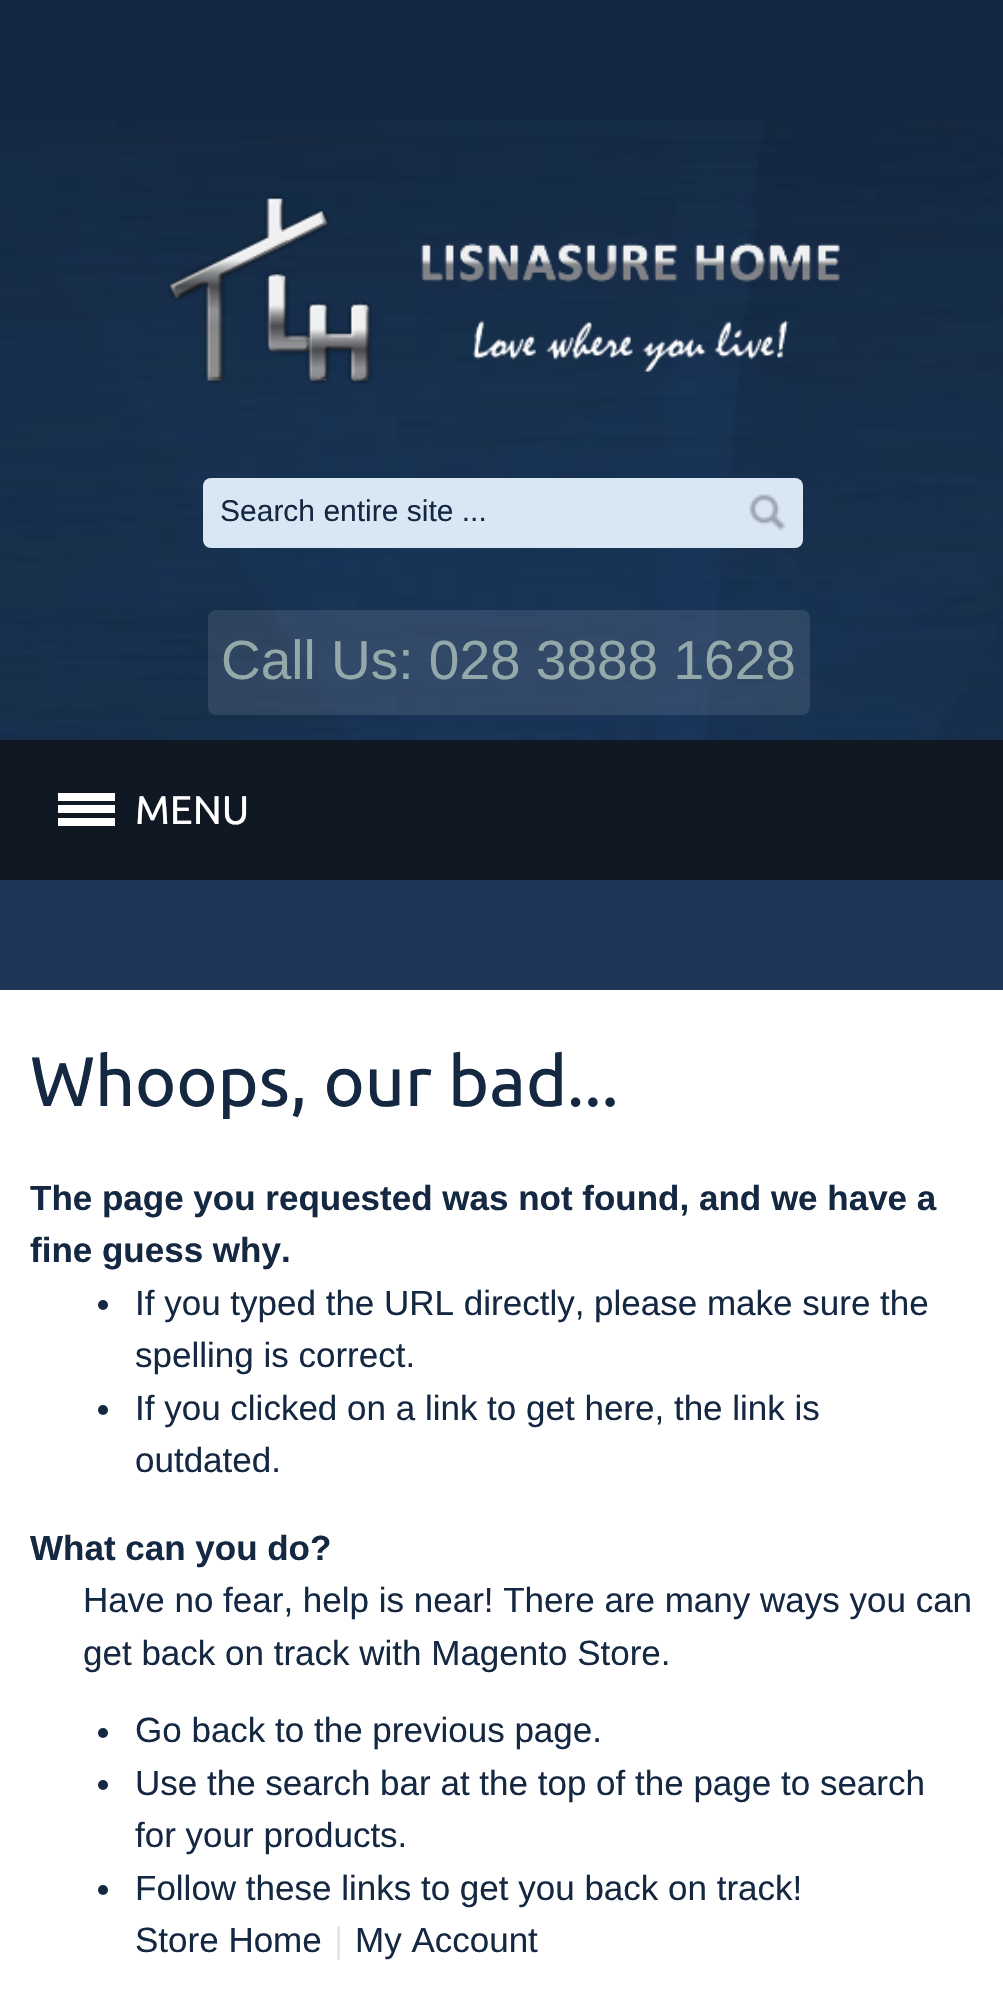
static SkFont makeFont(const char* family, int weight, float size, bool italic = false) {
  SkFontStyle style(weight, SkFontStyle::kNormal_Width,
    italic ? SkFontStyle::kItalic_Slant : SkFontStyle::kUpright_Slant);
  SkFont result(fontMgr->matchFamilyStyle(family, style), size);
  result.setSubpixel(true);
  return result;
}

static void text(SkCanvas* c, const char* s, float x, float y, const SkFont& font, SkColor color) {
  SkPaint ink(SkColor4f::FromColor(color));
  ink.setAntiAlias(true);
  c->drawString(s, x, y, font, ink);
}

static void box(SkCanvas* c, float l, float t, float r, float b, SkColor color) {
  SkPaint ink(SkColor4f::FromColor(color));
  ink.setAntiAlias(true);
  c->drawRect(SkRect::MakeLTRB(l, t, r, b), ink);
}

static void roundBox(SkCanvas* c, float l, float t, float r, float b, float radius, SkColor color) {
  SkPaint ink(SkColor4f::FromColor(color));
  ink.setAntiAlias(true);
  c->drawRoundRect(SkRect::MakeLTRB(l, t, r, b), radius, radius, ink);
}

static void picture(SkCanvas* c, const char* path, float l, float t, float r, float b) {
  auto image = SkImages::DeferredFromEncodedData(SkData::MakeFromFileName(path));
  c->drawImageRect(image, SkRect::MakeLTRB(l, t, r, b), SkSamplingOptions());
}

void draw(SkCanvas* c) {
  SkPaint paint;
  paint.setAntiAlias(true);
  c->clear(0xffffffff);
  picture(c, "img_01.png", 0, 120, 1003, 740);
  box(c, 0, 0, 1003, 120, 0xff152842);
  picture(c, "img_02.png", 168, 195, 840, 385);
  roundBox(c, 203, 478, 803, 548, 8, 0xffd9e6f4);
  SkFont face1 = makeFont("Liberation Sans", 400, 30);
  text(c, "Search entire site ...", 220, 521, face1, 0xff152842);
  picture(c, "img_03.png", 749, 494, 786, 531);
  roundBox(c, 208, 610, 810, 715, 8, 0x1affffff);
  SkFont face2 = makeFont("Liberation Sans", 400, 55);
  text(c, "Call Us: 028 3888 1628", 221, 679, face2, 0xff95a8a9);
  box(c, 0, 740, 1003, 880, 0xff101824);
  box(c, 58, 793, 115, 801, 0xffffffff);
  box(c, 58, 805, 115, 813, 0xffffffff);
  box(c, 58, 818, 115, 826, 0xffffffff);
  SkFont face3 = makeFont("Ubuntu", 400, 40);
  text(c, "MENU", 135, 824, face3, 0xffffffff);
  box(c, 0, 880, 1003, 990, 0xff1e3759);
  SkFont face4 = makeFont("Ubuntu", 400, 70);
  text(c, "Whoops, our bad...", 30, 1106, face4, 0xff152842);
  SkFont face5 = makeFont("Liberation Sans", 700, 35);
  text(c, "The page you requested was not found, and we have a", 30, 1210, face5, 0xff152842);
  text(c, "fine guess why.", 30, 1262, face5, 0xff152842);
  paint.setColor(0xff152842);
  c->drawCircle(103, 1305, 5, paint);
  SkFont face6 = makeFont("Liberation Sans", 400, 35);
  text(c, "If you typed the URL directly, please make sure the", 135, 1315, face6, 0xff152842);
  text(c, "spelling is correct.", 135, 1367, face6, 0xff152842);
  c->drawCircle(103, 1410, 5, paint);
  text(c, "If you clicked on a link to get here, the link is", 135, 1420, face6, 0xff152842);
  text(c, "outdated.", 135, 1472, face6, 0xff152842);
  text(c, "What can you do?", 30, 1560, face5, 0xff152842);
  text(c, "Have no fear, help is near! There are many ways you can", 83, 1612, face6, 0xff152842);
  text(c, "get back on track with Magento Store.", 83, 1665, face6, 0xff152842);
  c->drawCircle(103, 1733, 5, paint);
  text(c, "Go back to the previous page.", 135, 1742, face6, 0xff152842);
  c->drawCircle(103, 1785, 5, paint);
  text(c, "Use the search bar at the top of the page to search", 135, 1795, face6, 0xff152842);
  text(c, "for your products.", 135, 1847, face6, 0xff152842);
  c->drawCircle(103, 1890, 5, paint);
  text(c, "Follow these links to get you back on track!", 135, 1900, face6, 0xff152842);
  text(c, "Store Home", 135, 1952, face6, 0xff152842);
  text(c, "|", 334, 1952, face6, 0xffe5e5e5);
  text(c, "My Account", 355, 1952, face6, 0xff152842);
}
